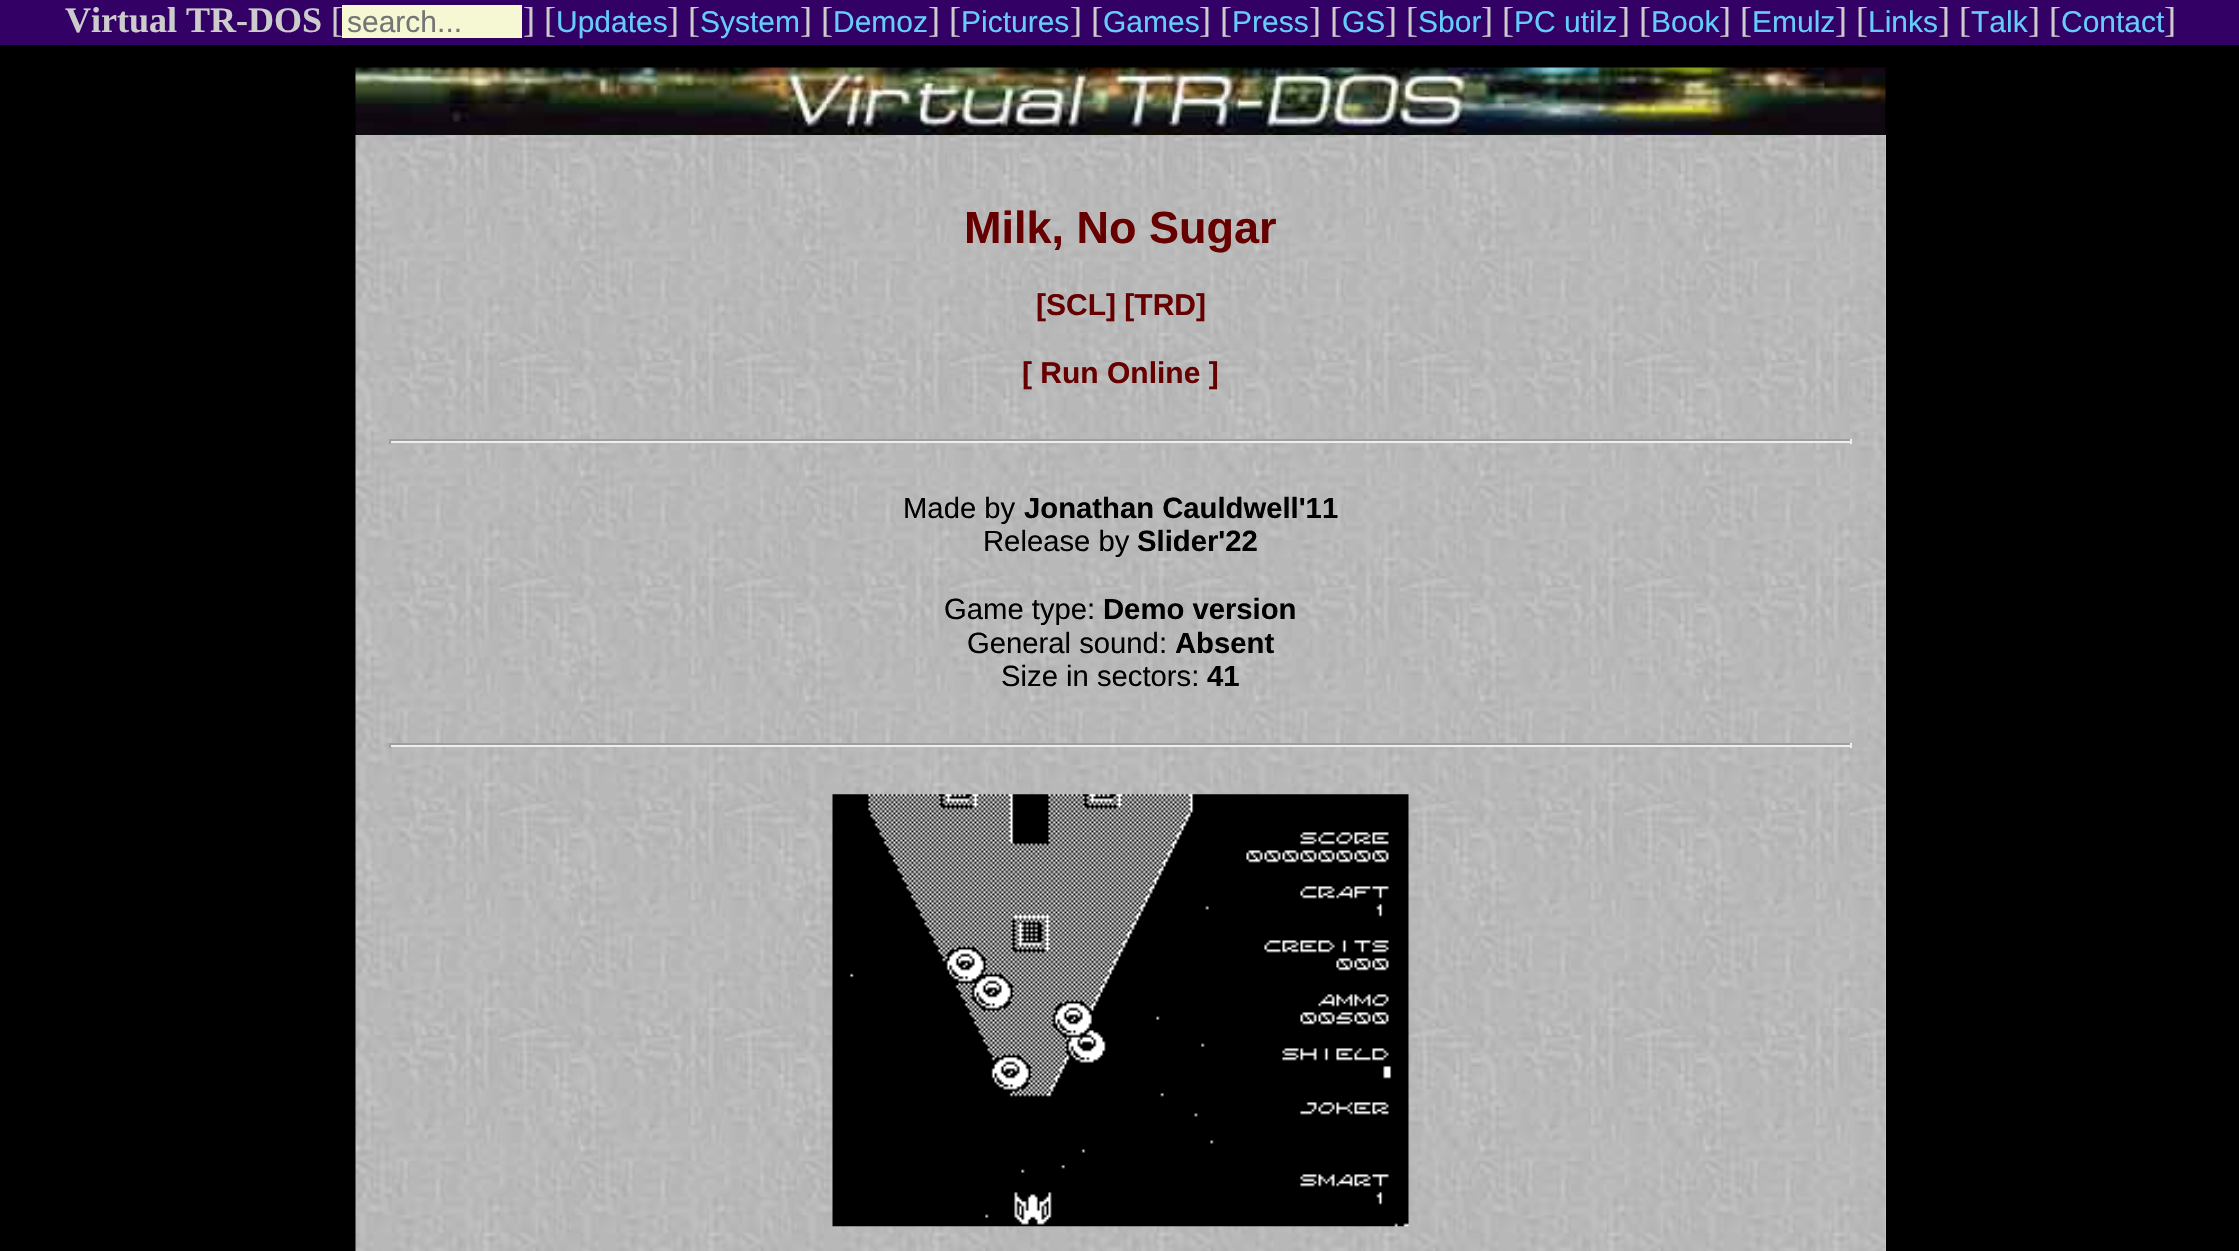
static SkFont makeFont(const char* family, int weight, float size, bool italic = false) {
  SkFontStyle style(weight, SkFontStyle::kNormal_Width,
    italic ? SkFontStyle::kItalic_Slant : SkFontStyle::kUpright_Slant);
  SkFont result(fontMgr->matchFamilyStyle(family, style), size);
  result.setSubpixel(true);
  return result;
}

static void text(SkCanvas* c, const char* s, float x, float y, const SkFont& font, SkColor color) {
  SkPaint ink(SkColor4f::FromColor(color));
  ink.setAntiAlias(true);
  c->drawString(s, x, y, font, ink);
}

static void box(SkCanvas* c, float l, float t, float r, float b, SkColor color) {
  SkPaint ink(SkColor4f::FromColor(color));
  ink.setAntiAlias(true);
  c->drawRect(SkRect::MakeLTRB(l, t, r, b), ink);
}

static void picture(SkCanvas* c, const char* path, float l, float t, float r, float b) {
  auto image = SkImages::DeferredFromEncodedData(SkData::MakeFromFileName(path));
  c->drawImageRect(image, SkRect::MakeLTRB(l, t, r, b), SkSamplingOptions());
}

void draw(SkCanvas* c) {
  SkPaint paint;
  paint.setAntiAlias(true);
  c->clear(0xff000000);
  box(c, 0, 0, 2239, 45, 0xff330066);
  SkFont face1 = makeFont("Liberation Serif", 700, 36);
  text(c, "Virtual TR-DOS", 65, 32, face1, 0xffcccccc);
  SkFont face2 = makeFont("Liberation Serif", 400, 36);
  text(c, "[", 331, 32, face2, 0xffcccccc);
  box(c, 342, 5, 522, 38, 0xfff5f8d3);
  SkFont face3 = makeFont("Liberation Sans", 400, 30);
  text(c, "search...", 347, 32, face3, 0xff757575);
  text(c, "] [", 523, 32, face2, 0xffcccccc);
  text(c, "Updates", 556, 32, face3, 0xff66ccff);
  text(c, "] [", 667, 32, face2, 0xffcccccc);
  text(c, "System", 700, 32, face3, 0xff66ccff);
  text(c, "] [", 800, 32, face2, 0xffcccccc);
  text(c, "Demoz", 833, 32, face3, 0xff66ccff);
  text(c, "] [", 928, 32, face2, 0xffcccccc);
  text(c, "Pictures", 961, 32, face3, 0xff66ccff);
  text(c, "] [", 1070, 32, face2, 0xffcccccc);
  text(c, "Games", 1103, 32, face3, 0xff66ccff);
  text(c, "] [", 1199, 32, face2, 0xffcccccc);
  text(c, "Press", 1232, 32, face3, 0xff66ccff);
  text(c, "] [", 1309, 32, face2, 0xffcccccc);
  text(c, "GS", 1342, 32, face3, 0xff66ccff);
  text(c, "] [", 1385, 32, face2, 0xffcccccc);
  text(c, "Sbor", 1418, 32, face3, 0xff66ccff);
  text(c, "] [", 1481, 32, face2, 0xffcccccc);
  text(c, "PC utilz", 1514, 32, face3, 0xff66ccff);
  text(c, "] [", 1618, 32, face2, 0xffcccccc);
  text(c, "Book", 1651, 32, face3, 0xff66ccff);
  text(c, "] [", 1719, 32, face2, 0xffcccccc);
  text(c, "Emulz", 1752, 32, face3, 0xff66ccff);
  text(c, "] [", 1835, 32, face2, 0xffcccccc);
  text(c, "Links", 1868, 32, face3, 0xff66ccff);
  text(c, "] [", 1938, 32, face2, 0xffcccccc);
  text(c, "Talk", 1971, 32, face3, 0xff66ccff);
  text(c, "] [", 2028, 32, face2, 0xffcccccc);
  text(c, "Contact", 2061, 32, face3, 0xff66ccff);
  text(c, "]", 2164, 32, face2, 0xffcccccc);
  picture(c, "img_01.png", 355, 67, 1886, 135);
  box(c, 1885, 135, 1886, 1251, 0xffcccccc);
  picture(c, "img_02.png", 355, 135, 1886, 1251);
  SkFont face4 = makeFont("Liberation Sans", 700, 45);
  text(c, "Milk, No Sugar", 964, 243, face4, 0xff660000);
  SkFont face5 = makeFont("Liberation Sans", 700, 30);
  text(c, "[SCL] [TRD]", 1036, 315, face5, 0xff660000);
  text(c, "[ Run Online ]", 1022, 383, face5, 0xff660000);
  box(c, 389, 439, 1852, 441, 0xff9f9f9f);
  box(c, 1850, 439, 1852, 444, 0xffeeeeee);
  box(c, 389, 441, 1852, 443, 0xffeeeeee);
  box(c, 389, 439, 391, 444, 0xff9f9f9f);
  SkFont face6 = makeFont("Liberation Sans", 400, 29.25f);
  text(c, "Made by", 903, 518, face6, 0xff000000);
  SkFont face7 = makeFont("Liberation Sans", 700, 29.25f);
  text(c, "Jonathan Cauldwell'11", 1024, 518, face7, 0xff000000);
  text(c, "Release by", 983, 551, face6, 0xff000000);
  text(c, "Slider'22", 1137, 551, face7, 0xff000000);
  text(c, "Game type:", 944, 619, face6, 0xff000000);
  text(c, "Demo version", 1103, 619, face7, 0xff000000);
  text(c, "General sound:", 967, 653, face6, 0xff000000);
  text(c, "Absent", 1175, 653, face7, 0xff000000);
  text(c, "Size in sectors:", 1001, 686, face6, 0xff000000);
  text(c, "41", 1207, 686, face7, 0xff000000);
  box(c, 389, 743, 1852, 745, 0xff9f9f9f);
  box(c, 1850, 743, 1852, 748, 0xffeeeeee);
  box(c, 389, 745, 1852, 747, 0xffeeeeee);
  box(c, 389, 743, 391, 748, 0xff9f9f9f);
  picture(c, "img_03.png", 832, 794, 1409, 1227);
}
